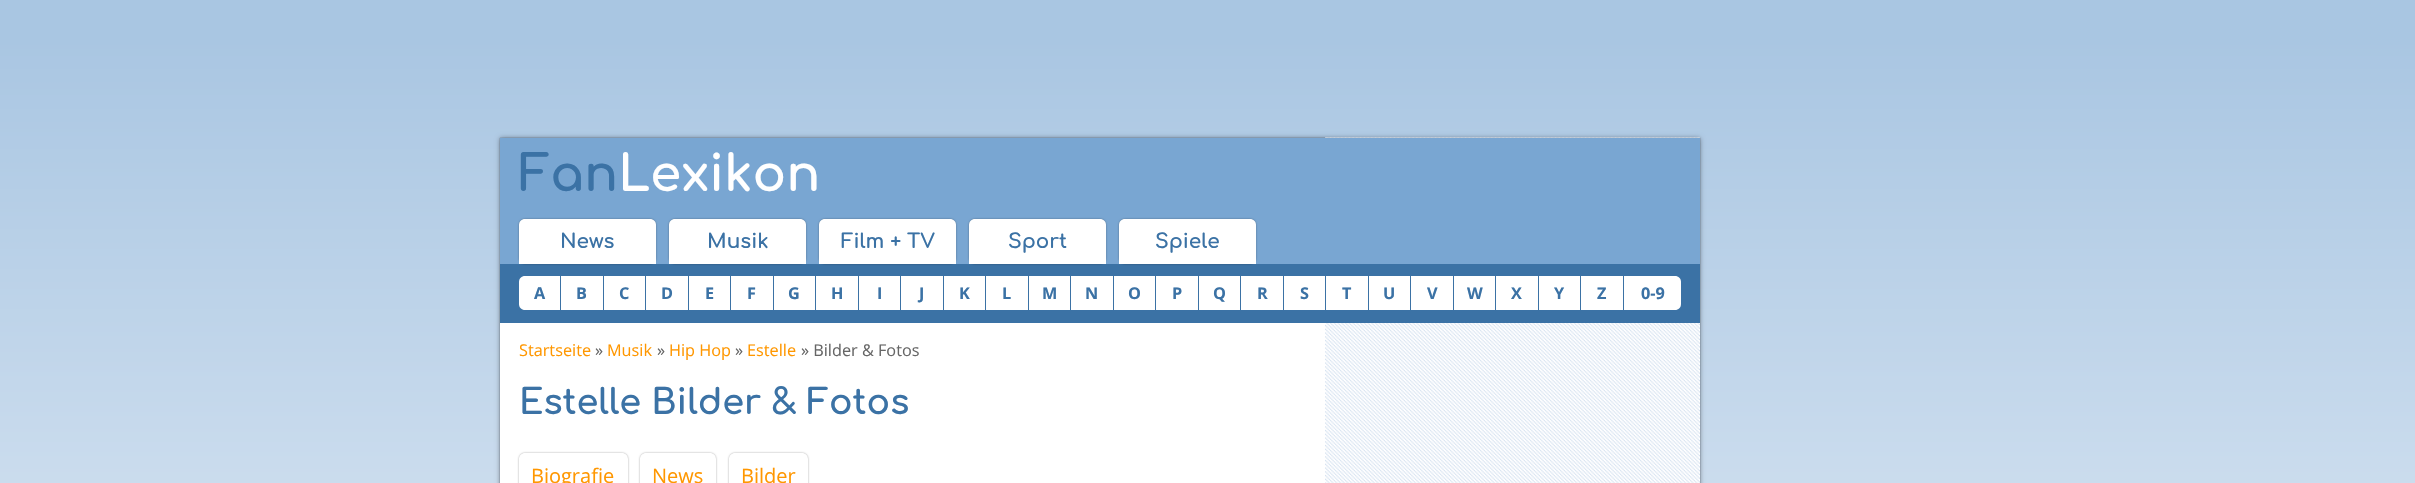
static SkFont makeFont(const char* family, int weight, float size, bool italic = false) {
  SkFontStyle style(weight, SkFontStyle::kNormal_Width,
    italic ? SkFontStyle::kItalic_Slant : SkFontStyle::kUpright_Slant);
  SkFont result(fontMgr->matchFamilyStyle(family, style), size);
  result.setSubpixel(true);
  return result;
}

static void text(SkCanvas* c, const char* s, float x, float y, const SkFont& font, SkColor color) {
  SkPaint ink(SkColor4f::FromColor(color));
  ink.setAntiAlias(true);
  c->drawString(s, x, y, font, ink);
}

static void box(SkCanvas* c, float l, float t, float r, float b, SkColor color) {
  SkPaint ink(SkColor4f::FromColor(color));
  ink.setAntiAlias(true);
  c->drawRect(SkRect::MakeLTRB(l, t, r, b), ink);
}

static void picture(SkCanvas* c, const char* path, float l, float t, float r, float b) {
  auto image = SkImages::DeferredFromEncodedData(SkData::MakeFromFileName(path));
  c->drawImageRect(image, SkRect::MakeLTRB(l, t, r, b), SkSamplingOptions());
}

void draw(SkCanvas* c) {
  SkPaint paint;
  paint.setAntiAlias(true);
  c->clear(0xffffffff);
  picture(c, "img_01.png", 0, 0, 2415, 483);
  paint.setColor(0x80000000);
  paint.setMaskFilter(SkMaskFilter::MakeBlur(kNormal_SkBlurStyle, 0.5f));
  c->drawRect(SkRect::MakeLTRB(500, 138, 1700, 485), paint);
  paint.setMaskFilter(nullptr);
  paint.setColor(0x66000000);
  paint.setMaskFilter(SkMaskFilter::MakeBlur(kNormal_SkBlurStyle, 2.5f));
  c->drawRect(SkRect::MakeLTRB(500, 138, 1700, 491), paint);
  paint.setMaskFilter(nullptr);
  box(c, 500, 323, 1325, 483, 0xffffffff);
  picture(c, "img_02.png", 1325, 137, 1700, 483);
  box(c, 500, 138, 1700, 264, 0xff79a6d2);
  SkFont face1 = makeFont("Comfortaa", 700, 50);
  text(c, "Fan", 519, 191, face1, 0xff3b72a5);
  text(c, "Lexikon", 618, 191, face1, 0xffffffff);
  box(c, 500, 264, 1700, 323, 0xff3b72a5);
  paint.setMaskFilter(SkMaskFilter::MakeBlur(kNormal_SkBlurStyle, 1));
  c->drawRoundRect(SkRect::MakeLTRB(519, 219, 656, 264), 6, 6, paint);
  paint.setMaskFilter(nullptr);
  paint.setColor(0xffffffff);
  c->drawPath(SkPathBuilder().moveTo(525, 219).lineTo(650, 219).cubicTo(653.5f, 219, 656, 221.5f, 656, 225).lineTo(656, 264).lineTo(519, 264).lineTo(519, 225).cubicTo(519, 221.5f, 521.5f, 219, 525, 219).close().detach(), paint);
  SkFont face2 = makeFont("Comfortaa", 700, 20);
  text(c, "News", 560, 248, face2, 0xff3b72a5);
  paint.setColor(0x66000000);
  paint.setMaskFilter(SkMaskFilter::MakeBlur(kNormal_SkBlurStyle, 1));
  c->drawRoundRect(SkRect::MakeLTRB(669, 219, 806, 264), 6, 6, paint);
  paint.setMaskFilter(nullptr);
  paint.setColor(0xffffffff);
  c->drawPath(SkPathBuilder().moveTo(675, 219).lineTo(800, 219).cubicTo(803.5f, 219, 806, 221.5f, 806, 225).lineTo(806, 264).lineTo(669, 264).lineTo(669, 225).cubicTo(669, 221.5f, 671.5f, 219, 675, 219).close().detach(), paint);
  text(c, "Musik", 707, 248, face2, 0xff3b72a5);
  paint.setColor(0x66000000);
  paint.setMaskFilter(SkMaskFilter::MakeBlur(kNormal_SkBlurStyle, 1));
  c->drawRoundRect(SkRect::MakeLTRB(819, 219, 956, 264), 6, 6, paint);
  paint.setMaskFilter(nullptr);
  paint.setColor(0xffffffff);
  c->drawPath(SkPathBuilder().moveTo(825, 219).lineTo(950, 219).cubicTo(953.5f, 219, 956, 221.5f, 956, 225).lineTo(956, 264).lineTo(819, 264).lineTo(819, 225).cubicTo(819, 221.5f, 821.5f, 219, 825, 219).close().detach(), paint);
  text(c, "Film + TV", 841, 248, face2, 0xff3b72a5);
  paint.setColor(0x66000000);
  paint.setMaskFilter(SkMaskFilter::MakeBlur(kNormal_SkBlurStyle, 1));
  c->drawRoundRect(SkRect::MakeLTRB(969, 219, 1106, 264), 6, 6, paint);
  paint.setMaskFilter(nullptr);
  paint.setColor(0xffffffff);
  c->drawPath(SkPathBuilder().moveTo(975, 219).lineTo(1100, 219).cubicTo(1103.5f, 219, 1106, 221.5f, 1106, 225).lineTo(1106, 264).lineTo(969, 264).lineTo(969, 225).cubicTo(969, 221.5f, 971.5f, 219, 975, 219).close().detach(), paint);
  text(c, "Sport", 1008, 248, face2, 0xff3b72a5);
  paint.setColor(0x66000000);
  paint.setMaskFilter(SkMaskFilter::MakeBlur(kNormal_SkBlurStyle, 1));
  c->drawRoundRect(SkRect::MakeLTRB(1119, 219, 1256, 264), 6, 6, paint);
  paint.setMaskFilter(nullptr);
  paint.setColor(0xffffffff);
  c->drawPath(SkPathBuilder().moveTo(1125, 219).lineTo(1250, 219).cubicTo(1253.5f, 219, 1256, 221.5f, 1256, 225).lineTo(1256, 264).lineTo(1119, 264).lineTo(1119, 225).cubicTo(1119, 221.5f, 1121.5f, 219, 1125, 219).close().detach(), paint);
  text(c, "Spiele", 1155, 248, face2, 0xff3b72a5);
  c->drawPath(SkPathBuilder().moveTo(525, 276).lineTo(560, 276).lineTo(560, 310).lineTo(525, 310).cubicTo(521.5f, 310, 519, 307.5f, 519, 304).lineTo(519, 282).cubicTo(519, 278.5f, 521.5f, 276, 525, 276).close().detach(), paint);
  SkFont face3 = makeFont("Open Sans", 700, 16.25f);
  text(c, "A", 534, 299, face3, 0xff3b72a5);
  box(c, 561, 276, 603, 310, 0xffffffff);
  text(c, "B", 576, 299, face3, 0xff3b72a5);
  box(c, 604, 276, 645, 310, 0xffffffff);
  text(c, "C", 619, 299, face3, 0xff3b72a5);
  box(c, 646, 276, 688, 310, 0xffffffff);
  text(c, "D", 661, 299, face3, 0xff3b72a5);
  box(c, 689, 276, 730, 310, 0xffffffff);
  text(c, "E", 705, 299, face3, 0xff3b72a5);
  box(c, 731, 276, 773, 310, 0xffffffff);
  text(c, "F", 747, 299, face3, 0xff3b72a5);
  box(c, 774, 276, 815, 310, 0xffffffff);
  text(c, "G", 788, 299, face3, 0xff3b72a5);
  box(c, 816, 276, 858, 310, 0xffffffff);
  text(c, "H", 831, 299, face3, 0xff3b72a5);
  box(c, 859, 276, 900, 310, 0xffffffff);
  text(c, "I", 877, 299, face3, 0xff3b72a5);
  box(c, 901, 276, 943, 310, 0xffffffff);
  text(c, "J", 919, 299, face3, 0xff3b72a5);
  box(c, 944, 276, 985, 310, 0xffffffff);
  text(c, "K", 959, 299, face3, 0xff3b72a5);
  box(c, 986, 276, 1028, 310, 0xffffffff);
  text(c, "L", 1002, 299, face3, 0xff3b72a5);
  box(c, 1029, 276, 1070, 310, 0xffffffff);
  text(c, "M", 1042, 299, face3, 0xff3b72a5);
  box(c, 1071, 276, 1113, 310, 0xffffffff);
  text(c, "N", 1085, 299, face3, 0xff3b72a5);
  box(c, 1114, 276, 1155, 310, 0xffffffff);
  text(c, "O", 1128, 299, face3, 0xff3b72a5);
  box(c, 1156, 276, 1198, 310, 0xffffffff);
  text(c, "P", 1172, 299, face3, 0xff3b72a5);
  box(c, 1199, 276, 1240, 310, 0xffffffff);
  text(c, "Q", 1213, 299, face3, 0xff3b72a5);
  box(c, 1241, 276, 1283, 310, 0xffffffff);
  text(c, "R", 1257, 299, face3, 0xff3b72a5);
  box(c, 1284, 276, 1325, 310, 0xffffffff);
  text(c, "S", 1300, 299, face3, 0xff3b72a5);
  box(c, 1326, 276, 1368, 310, 0xffffffff);
  text(c, "T", 1342, 299, face3, 0xff3b72a5);
  box(c, 1369, 276, 1410, 310, 0xffffffff);
  text(c, "U", 1383, 299, face3, 0xff3b72a5);
  box(c, 1411, 276, 1453, 310, 0xffffffff);
  text(c, "V", 1427, 299, face3, 0xff3b72a5);
  box(c, 1454, 276, 1495, 310, 0xffffffff);
  text(c, "W", 1467, 299, face3, 0xff3b72a5);
  box(c, 1496, 276, 1538, 310, 0xffffffff);
  text(c, "X", 1511, 299, face3, 0xff3b72a5);
  box(c, 1539, 276, 1580, 310, 0xffffffff);
  text(c, "Y", 1554, 299, face3, 0xff3b72a5);
  box(c, 1581, 276, 1623, 310, 0xffffffff);
  text(c, "Z", 1597, 299, face3, 0xff3b72a5);
  c->drawPath(SkPathBuilder().moveTo(1624, 276).lineTo(1675, 276).cubicTo(1678.5f, 276, 1681, 278.5f, 1681, 282).lineTo(1681, 304).cubicTo(1681, 307.5f, 1678.5f, 310, 1675, 310).lineTo(1624, 310).close().detach(), paint);
  text(c, "0-9", 1641, 299, face3, 0xff3b72a5);
  SkFont face4 = makeFont("Open Sans", 400, 16.25f);
  text(c, "Startseite", 519, 356, face4, 0xffff9700);
  text(c, "»", 595, 356, face4, 0xff666666);
  text(c, "Musik", 607, 356, face4, 0xffff9700);
  text(c, "»", 657, 356, face4, 0xff666666);
  text(c, "Hip Hop", 669, 356, face4, 0xffff9700);
  text(c, "»", 735, 356, face4, 0xff666666);
  text(c, "Estelle", 747, 356, face4, 0xffff9700);
  text(c, "» Bilder & Fotos", 801, 356, face4, 0xff666666);
  SkFont face5 = makeFont("Comfortaa", 700, 35);
  text(c, "Estelle Bilder & Fotos", 519, 414, face5, 0xff3b72a5);
  c->save();
  c->clipPath(SkPathBuilder(SkPathFillType::kEvenOdd).moveTo(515, 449).lineTo(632, 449).lineTo(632, 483).lineTo(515, 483).close().moveTo(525, 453).lineTo(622, 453).cubicTo(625.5f, 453, 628, 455.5f, 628, 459).lineTo(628, 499).lineTo(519, 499).lineTo(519, 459).cubicTo(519, 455.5f, 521.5f, 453, 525, 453).close().detach(), true);
  paint.setColor(0x66000000);
  paint.setMaskFilter(SkMaskFilter::MakeBlur(kNormal_SkBlurStyle, 1));
  c->drawRoundRect(SkRect::MakeLTRB(519, 453, 628, 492), 6, 6, paint);
  paint.setMaskFilter(nullptr);
  c->restore();
  SkFont face6 = makeFont("Open Sans", 400, 20);
  text(c, "Biografie", 531, 483, face6, 0xffff9700);
  c->save();
  c->clipPath(SkPathBuilder(SkPathFillType::kEvenOdd).moveTo(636, 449).lineTo(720, 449).lineTo(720, 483).lineTo(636, 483).close().moveTo(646, 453).lineTo(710, 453).cubicTo(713.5f, 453, 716, 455.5f, 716, 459).lineTo(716, 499).lineTo(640, 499).lineTo(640, 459).cubicTo(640, 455.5f, 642.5f, 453, 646, 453).close().detach(), true);
  paint.setMaskFilter(SkMaskFilter::MakeBlur(kNormal_SkBlurStyle, 1));
  c->drawRoundRect(SkRect::MakeLTRB(640, 453, 716, 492), 6, 6, paint);
  paint.setMaskFilter(nullptr);
  c->restore();
  text(c, "News", 652, 483, face6, 0xffff9700);
  c->save();
  c->clipPath(SkPathBuilder(SkPathFillType::kEvenOdd).moveTo(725, 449).lineTo(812, 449).lineTo(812, 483).lineTo(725, 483).close().moveTo(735, 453).lineTo(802, 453).cubicTo(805.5f, 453, 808, 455.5f, 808, 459).lineTo(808, 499).lineTo(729, 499).lineTo(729, 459).cubicTo(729, 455.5f, 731.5f, 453, 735, 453).close().detach(), true);
  paint.setMaskFilter(SkMaskFilter::MakeBlur(kNormal_SkBlurStyle, 1));
  c->drawRoundRect(SkRect::MakeLTRB(729, 453, 808, 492), 6, 6, paint);
  paint.setMaskFilter(nullptr);
  c->restore();
  text(c, "Bilder", 741, 483, face6, 0xffff9700);
}
